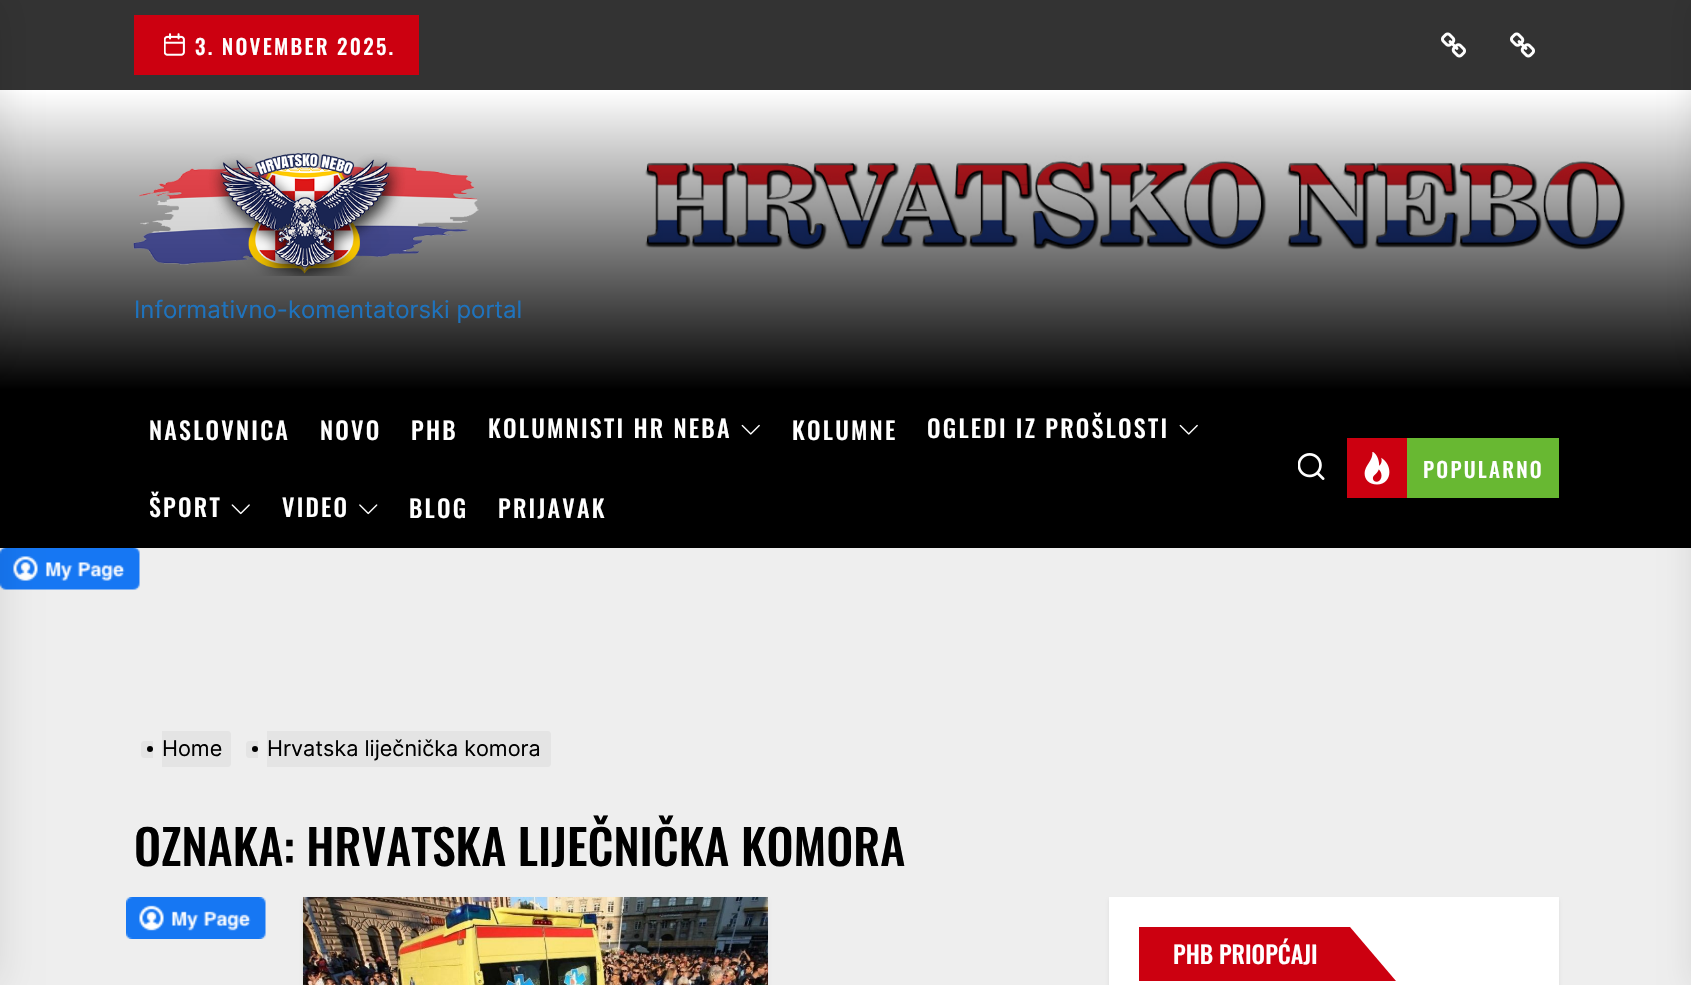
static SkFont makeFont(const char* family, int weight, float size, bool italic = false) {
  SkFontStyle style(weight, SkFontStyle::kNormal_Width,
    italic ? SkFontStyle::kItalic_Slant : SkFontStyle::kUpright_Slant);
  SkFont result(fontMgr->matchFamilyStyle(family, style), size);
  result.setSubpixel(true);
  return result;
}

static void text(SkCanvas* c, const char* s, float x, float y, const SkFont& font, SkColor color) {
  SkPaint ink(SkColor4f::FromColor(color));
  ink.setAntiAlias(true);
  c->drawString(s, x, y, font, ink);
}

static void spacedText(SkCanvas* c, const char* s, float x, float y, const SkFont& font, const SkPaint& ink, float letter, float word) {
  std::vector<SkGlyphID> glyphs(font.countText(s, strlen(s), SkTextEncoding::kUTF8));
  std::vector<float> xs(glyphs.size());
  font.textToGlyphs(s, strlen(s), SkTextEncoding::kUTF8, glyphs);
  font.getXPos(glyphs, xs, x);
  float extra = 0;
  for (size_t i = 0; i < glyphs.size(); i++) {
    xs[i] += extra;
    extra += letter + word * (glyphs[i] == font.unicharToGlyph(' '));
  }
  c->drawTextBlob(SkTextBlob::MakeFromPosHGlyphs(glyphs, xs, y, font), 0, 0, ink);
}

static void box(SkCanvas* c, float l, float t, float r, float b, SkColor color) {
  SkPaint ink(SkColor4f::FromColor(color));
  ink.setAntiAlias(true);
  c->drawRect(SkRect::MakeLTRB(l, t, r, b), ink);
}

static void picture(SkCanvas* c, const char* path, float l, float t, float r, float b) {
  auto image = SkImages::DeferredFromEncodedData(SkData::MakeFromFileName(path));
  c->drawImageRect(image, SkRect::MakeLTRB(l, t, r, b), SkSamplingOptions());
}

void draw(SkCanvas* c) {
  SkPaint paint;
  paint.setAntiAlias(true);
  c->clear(0xffeeeeee);
  box(c, 0, 0, 1691, 90, 0xff333333);
  picture(c, "img_03.png", 0, 90, 1691, 390);
  box(c, 0, 390, 1691, 548, 0xff000000);
  picture(c, "img_10.png", 0, 548, 140, 590);
  paint.setColor(0x1a000000);
  paint.setMaskFilter(SkMaskFilter::MakeBlur(kNormal_SkBlurStyle, 19));
  c->drawRect(SkRect::MakeLTRB(-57, 0, 0, 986), paint);
  paint.setMaskFilter(nullptr);
  box(c, 134, 15, 419, 75, 0xffcc0010);
  picture(c, "img_01.png", 164, 33, 185, 56);
  SkFont face1 = makeFont("Oswald", 500, 21);
  paint.setColor(0xffffffff);
  spacedText(c, "3. NOVEMBER 2025.", 195, 55, face1, paint, 2.25f, 0);
  picture(c, "img_02.png", 1441, 32, 1466, 58);
  picture(c, "img_02.png", 1510, 32, 1535, 58);
  paint.setColor(0x1a000000);
  paint.setMaskFilter(SkMaskFilter::MakeBlur(kNormal_SkBlurStyle, 15));
  c->drawRect(SkRect::MakeLTRB(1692, 0, 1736, 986), paint);
  paint.setMaskFilter(nullptr);
  picture(c, "img_04.png", 133, 153, 479, 276);
  SkFont face2 = makeFont("Inter", 400, 24);
  text(c, "Informativno-komentatorski portal", 134, 318, face2, 0xff1e73be);
  SkFont face3 = makeFont("Oswald", 500, 24);
  paint.setColor(0xffffffff);
  spacedText(c, "NASLOVNICA", 149, 440, face3, paint, 2.25f, 0);
  spacedText(c, "NOVO", 320, 440, face3, paint, 2.25f, 0);
  spacedText(c, "PHB", 411, 440, face3, paint, 2.25f, 0);
  spacedText(c, "KOLUMNISTI HR NEBA", 488, 438, face3, paint, 2.25f, 0);
  picture(c, "img_05.png", 741, 424, 760, 435);
  spacedText(c, "KOLUMNE", 792, 440, face3, paint, 2.25f, 0);
  spacedText(c, "OGLEDI IZ PROŠLOSTI", 927, 438, face3, paint, 2.25f, 0);
  picture(c, "img_05.png", 1179, 424, 1198, 435);
  spacedText(c, "ŠPORT", 149, 517, face3, paint, 2.25f, 0);
  picture(c, "img_06.png", 231, 504, 250, 515);
  spacedText(c, "VIDEO", 282, 517, face3, paint, 2.25f, 0);
  picture(c, "img_07.png", 359, 504, 378, 515);
  spacedText(c, "BLOG", 409, 518, face3, paint, 2.25f, 0);
  spacedText(c, "PRIJAVAK", 498, 518, face3, paint, 2.25f, 0);
  picture(c, "img_08.png", 1298, 453, 1325, 480);
  box(c, 1347, 438, 1407, 498, 0xffcc0010);
  picture(c, "img_09.png", 1364, 452, 1390, 485);
  box(c, 1407, 438, 1559, 498, 0xff68b832);
  spacedText(c, "POPULARNO", 1423, 478, face1, paint, 2.25f, 0);
  paint.setColor(0xffe4e4e4);
  c->drawPath(SkPathBuilder().moveTo(144, 741).lineTo(153, 741).lineTo(153, 758).lineTo(144, 758).cubicTo(142.5f, 758, 141, 756.5f, 141, 755).lineTo(141, 744).cubicTo(141, 742.5f, 142.5f, 741, 144, 741).close().detach(), paint);
  c->drawPath(SkPathBuilder().moveTo(162, 731).lineTo(228, 731).cubicTo(229.5f, 731, 231, 732.5f, 231, 734).lineTo(231, 764).cubicTo(231, 765.5f, 229.5f, 767, 228, 767).lineTo(162, 767).close().detach(), paint);
  paint.setColor(0xff000000);
  c->drawCircle(150, 749, 3, paint);
  SkFont face4 = makeFont("Inter", 400, 21.6f);
  text(c, "Home", 162, 756, face4, 0xff000000);
  paint.setColor(0xffe4e4e4);
  c->drawPath(SkPathBuilder().moveTo(249, 741).lineTo(258, 741).lineTo(258, 758).lineTo(249, 758).cubicTo(247.5f, 758, 246, 756.5f, 246, 755).lineTo(246, 744).cubicTo(246, 742.5f, 247.5f, 741, 249, 741).close().detach(), paint);
  c->drawPath(SkPathBuilder().moveTo(267, 731).lineTo(548, 731).cubicTo(549.5f, 731, 551, 732.5f, 551, 734).lineTo(551, 764).cubicTo(551, 765.5f, 549.5f, 767, 548, 767).lineTo(267, 767).close().detach(), paint);
  paint.setColor(0xff000000);
  c->drawCircle(255, 749, 3, paint);
  text(c, "Hrvatska liječnička komora", 267, 756, face4, 0xff000000);
  SkFont face5 = makeFont("Oswald", 500, 48);
  text(c, "OZNAKA: HRVATSKA LIJEČNIČKA KOMORA", 134, 866, face5, 0xff000000);
  picture(c, "img_11.png", 126, 897, 266, 939);
  paint.setColor(0x14000000);
  paint.setMaskFilter(SkMaskFilter::MakeBlur(kNormal_SkBlurStyle, 1.5f));
  c->drawRect(SkRect::MakeLTRB(303, 900, 768, 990), paint);
  paint.setMaskFilter(nullptr);
  picture(c, "img_12.png", 303, 897, 768, 985);
  paint.setMaskFilter(SkMaskFilter::MakeBlur(kNormal_SkBlurStyle, 1.5f));
  c->drawRect(SkRect::MakeLTRB(1109, 900, 1559, 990), paint);
  paint.setMaskFilter(nullptr);
  box(c, 1109, 897, 1559, 985, 0xffffffff);
  box(c, 1139, 927, 1350, 981, 0xffcc0010);
  text(c, "PHB PRIOPĆAJI", 1173, 964, face3, 0xffffffff);
  paint.setColor(0xffcc0010);
  c->drawPath(SkPathBuilder().moveTo(1350, 981).lineTo(1350, 927).lineTo(1396, 981).close().detach(), paint);
}
